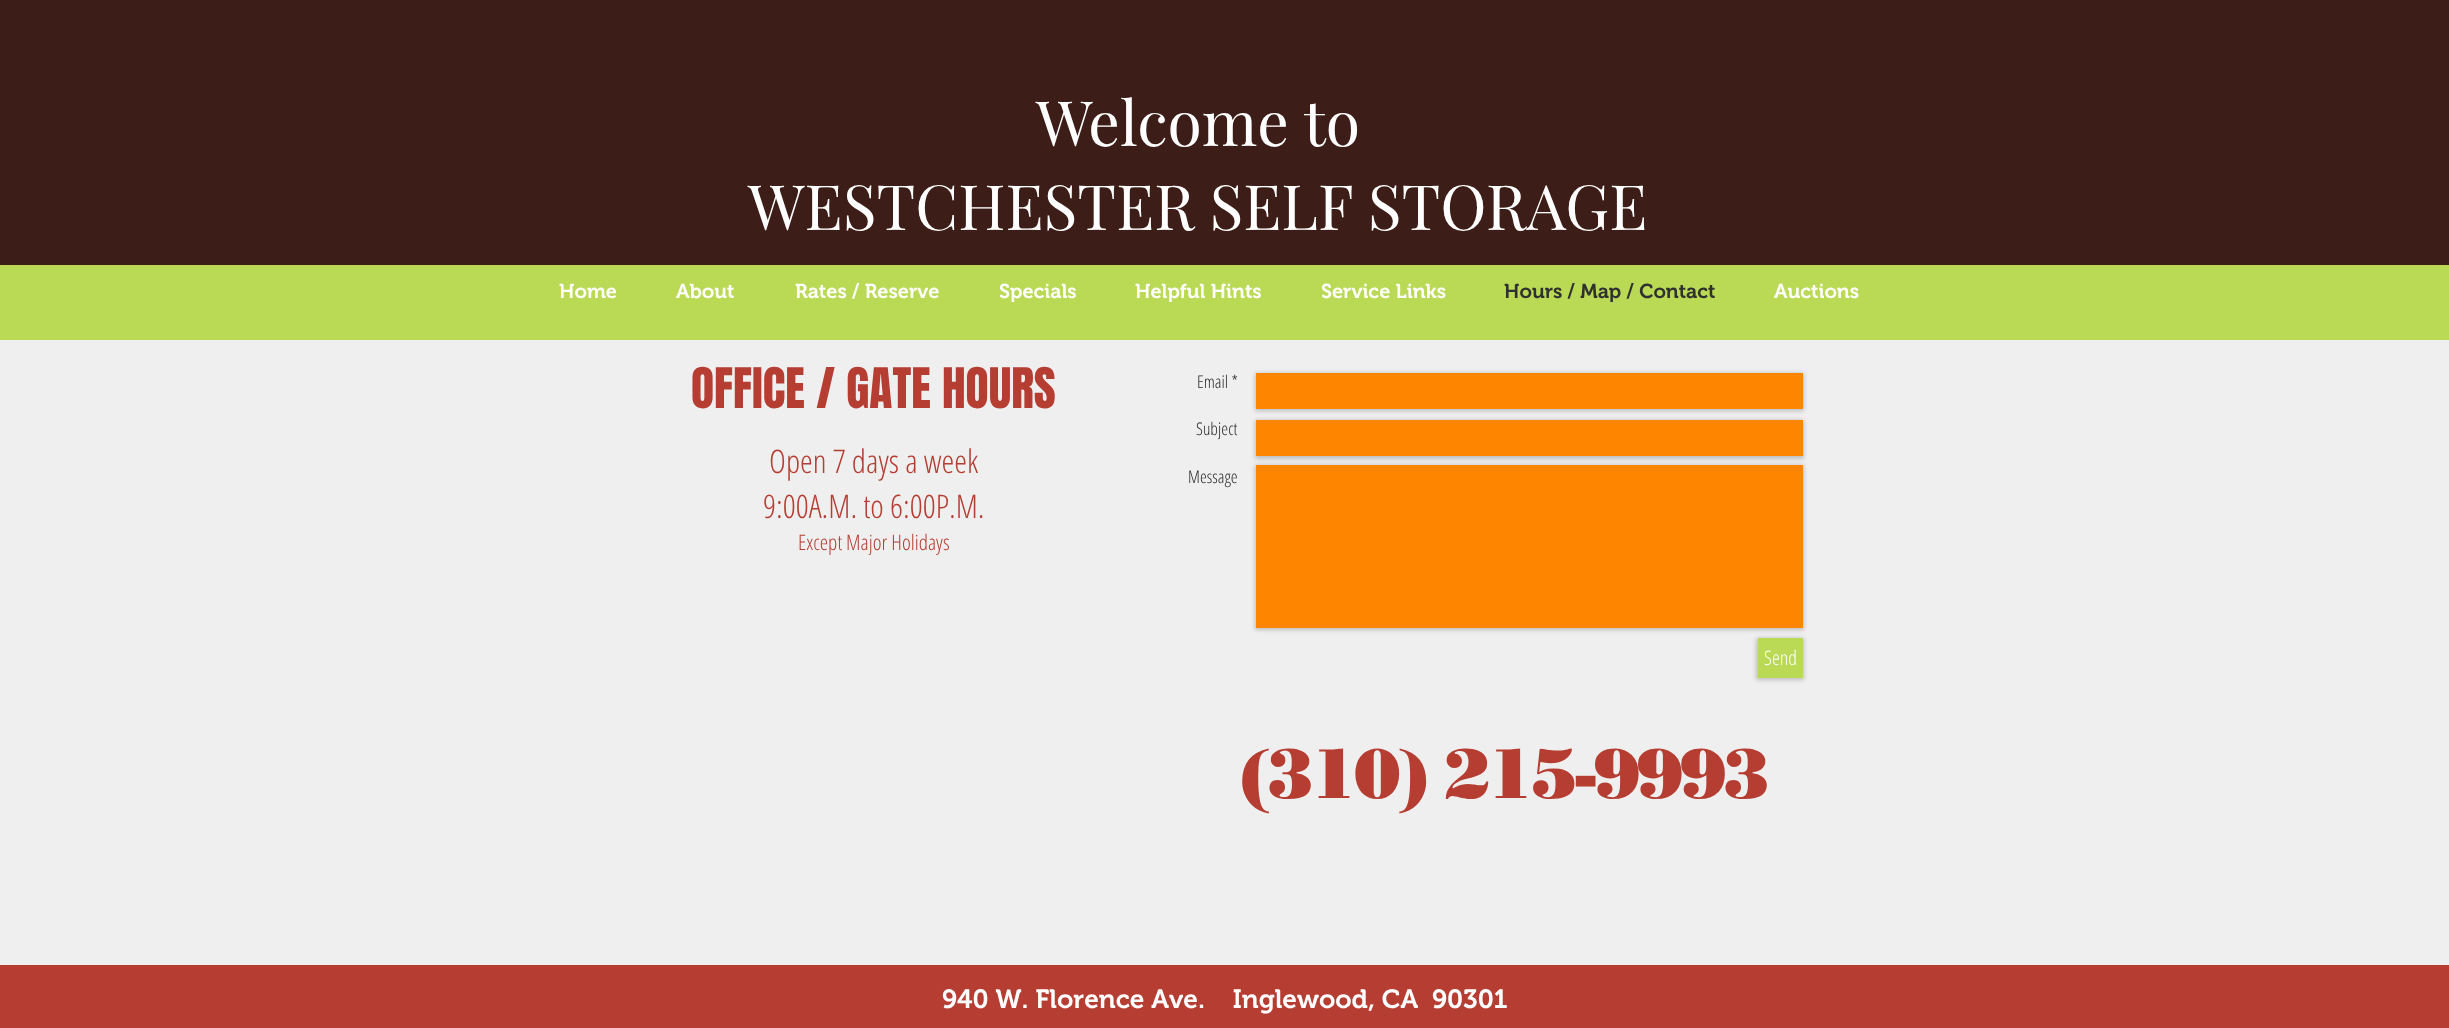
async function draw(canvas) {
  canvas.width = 2449;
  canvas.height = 1028;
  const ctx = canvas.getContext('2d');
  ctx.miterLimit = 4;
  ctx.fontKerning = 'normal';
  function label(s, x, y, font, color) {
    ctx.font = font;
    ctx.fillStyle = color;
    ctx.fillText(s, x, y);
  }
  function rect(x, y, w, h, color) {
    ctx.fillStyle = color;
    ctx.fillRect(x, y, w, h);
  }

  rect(0, 0, 2449, 1028, '#efefef');
  rect(0, 0, 2449, 265, '#3c1d17');
  label('Welcome to', 1036, 146, '62.5px Playfair Display', '#fff');
  label('WESTCHESTER SELF STORAGE', 748, 230, '62.5px Playfair Display', '#fff');
  rect(0, 265, 2449, 75, '#bada55');
  label('Home', 559, 298, '600 20px "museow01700"', '#fff');
  label('About', 676, 298, '600 20px "museow01700"', '#fff');
  label('Rates / Reserve', 795, 298, '600 20px "museow01700"', '#fff');
  label('Specials', 999, 298, '600 20px "museow01700"', '#fff');
  label('Helpful Hints', 1135, 298, '600 20px "museow01700"', '#fff');
  label('Service Links', 1321, 298, '600 20px "museow01700"', '#fff');
  label('Hours / Map / Contact', 1504, 298, '600 20px "museow01700"', '#303030');
  label('Auctions', 1774, 298, '600 20px "museow01700"', '#fff');
  label('OFFICE / GATE HOURS', 691, 408, '47.5px Anton', '#b63d32');
  label('Email *', 1197, 388, '300 17.5px Open Sans Condensed', '#2a2a2a');
  ctx.fillStyle = '#00000033';
  ctx.filter = 'blur(2px)';
  ctx.beginPath();
  ctx.rect(1255, 373, 549, 38);
  ctx.fill();
  ctx.filter = 'none';
  rect(1256, 373, 547, 36, '#fe8500');
  label('Subject', 1196, 435, '300 17.5px Open Sans Condensed', '#2a2a2a');
  ctx.fillStyle = '#00000033';
  ctx.filter = 'blur(2px)';
  ctx.beginPath();
  ctx.rect(1255, 420, 549, 39);
  ctx.fill();
  ctx.filter = 'none';
  rect(1256, 420, 547, 36, '#fe8500');
  label('Message', 1188, 483, '300 17.5px Open Sans Condensed', '#2a2a2a');
  ctx.fillStyle = '#00000033';
  ctx.filter = 'blur(2px)';
  ctx.beginPath();
  ctx.rect(1255, 465, 549, 165);
  ctx.fill();
  ctx.filter = 'none';
  rect(1256, 465, 547, 163, '#fe8500');
  ctx.fillStyle = '#00000033';
  ctx.filter = 'blur(2px)';
  ctx.beginPath();
  ctx.rect(1756, 638, 48, 42);
  ctx.fill();
  ctx.filter = 'none';
  rect(1758, 638, 45, 40, '#bada55');
  label('Send', 1764, 665, '300 20px Open Sans Condensed', '#fff');
  label('Open 7 days a week', 769, 473, '300 32.5px Open Sans Condensed', '#b63d32');
  label('9:00A.M. to 6:00P.M.', 763, 518, '300 32.5px Open Sans Condensed', '#b63d32');
  label('Except Major Holidays', 798, 550, '300 21.25px Open Sans Condensed', '#b63d32');
  ctx.letterSpacing = '-3.5px';
  label('(310) 215-9993', 1240, 798, '900 70px "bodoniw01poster"', '#b63d32');
  rect(0, 965, 2449, 63, '#b63d32');
  ctx.letterSpacing = '0px';
  label('940 W. Florence Ave.    Inglewood, CA  90301', 942, 1008, '600 26.25px "museow01700"', '#fff');
}

draw(document.querySelector('canvas'));
